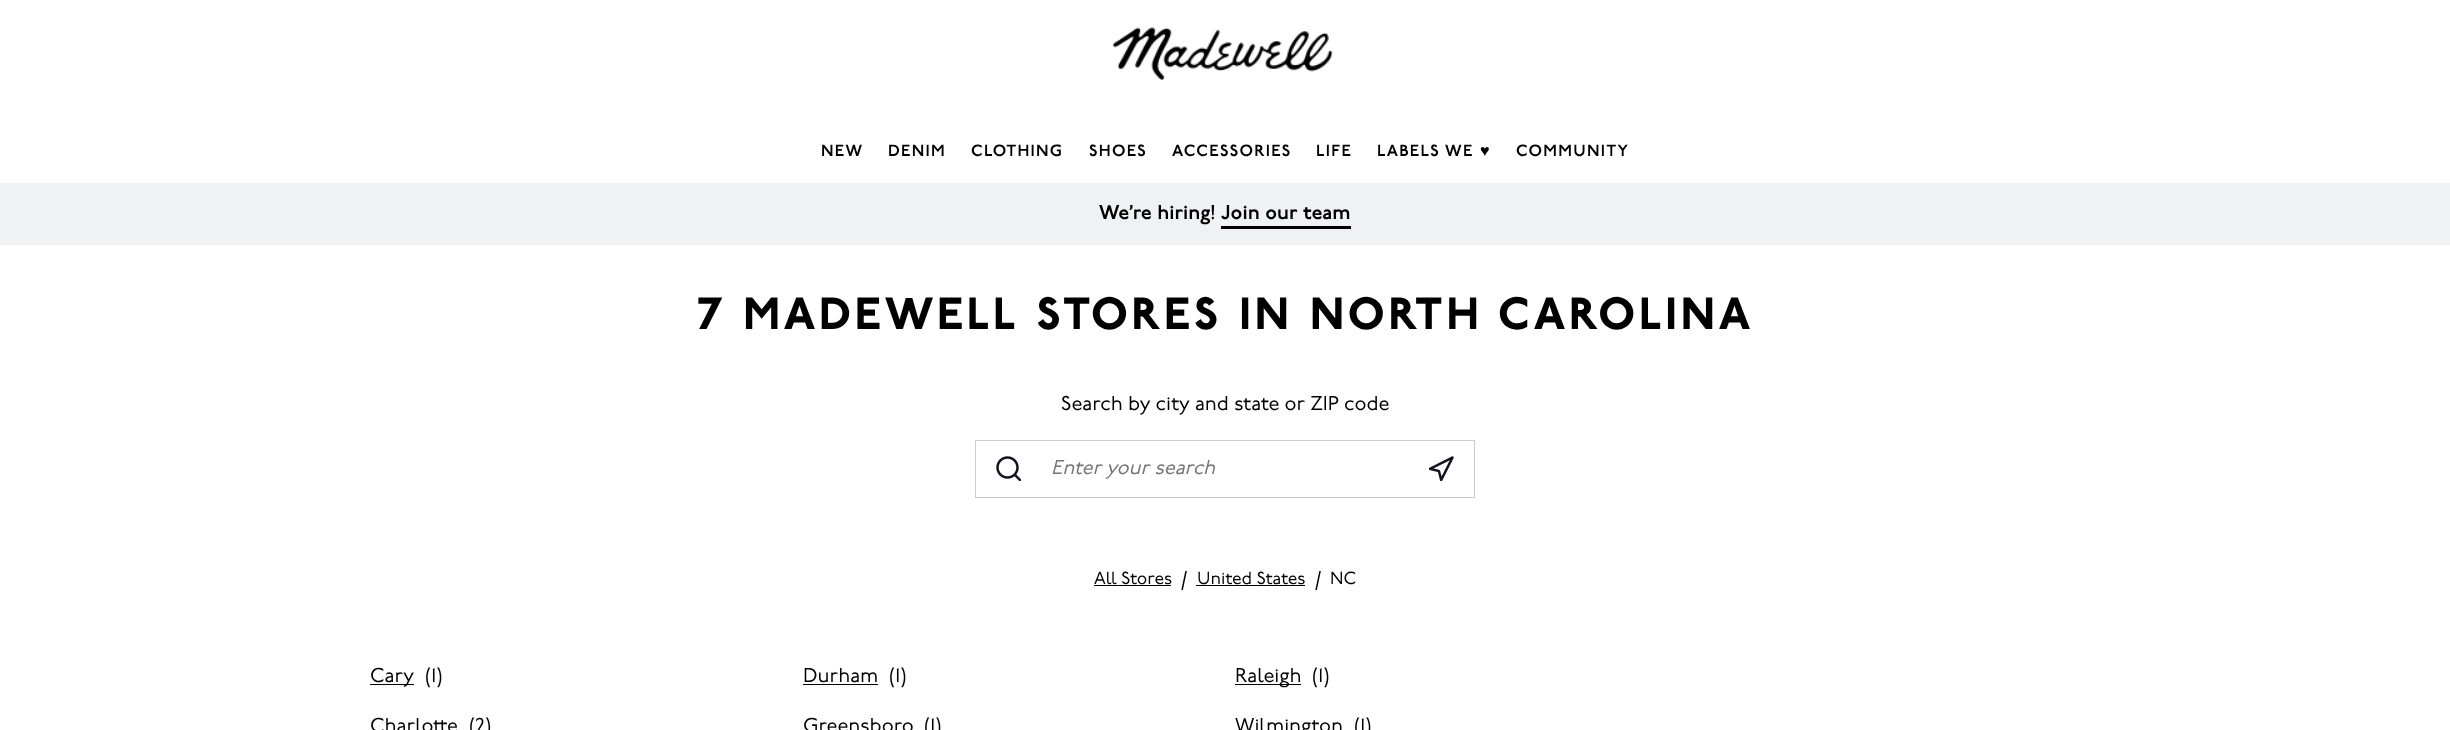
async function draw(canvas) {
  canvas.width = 2450;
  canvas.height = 730;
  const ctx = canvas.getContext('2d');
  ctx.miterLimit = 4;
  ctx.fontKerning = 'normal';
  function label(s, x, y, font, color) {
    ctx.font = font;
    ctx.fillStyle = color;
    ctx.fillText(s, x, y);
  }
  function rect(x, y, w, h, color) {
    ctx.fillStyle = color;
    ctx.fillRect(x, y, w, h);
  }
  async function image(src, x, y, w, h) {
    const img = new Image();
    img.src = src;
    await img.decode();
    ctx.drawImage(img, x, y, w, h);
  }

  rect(0, 0, 2450, 730, '#fff');
  await image('assets/img1.png', 1112, 27, 221, 53);
  ctx.letterSpacing = '1.25px';
  label('NEW', 821, 156, '600 16.25px "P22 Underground"', '#000');
  label('DENIM', 888, 156, '600 16.25px "P22 Underground"', '#000');
  label('CLOTHING', 971, 156, '600 16.25px "P22 Underground"', '#000');
  label('SHOES', 1089, 156, '600 16.25px "P22 Underground"', '#000');
  label('ACCESSORIES', 1172, 156, '600 16.25px "P22 Underground"', '#000');
  label('LIFE', 1316, 156, '600 16.25px "P22 Underground"', '#000');
  label('LABELS WE', 1377, 156, '600 16.25px "P22 Underground"', '#000');
  label('♥', 1480, 156, 'bold 16.25px Liberation Sans', '#000');
  label('COMMUNITY', 1516, 156, '600 16.25px "P22 Underground"', '#000');
  rect(0, 183, 2450, 62, '#f0f1f2');
  ctx.letterSpacing = '0px';
  label('We’re hiring! Join our team', 1099, 219, '600 20px "P22 Underground"', '#000');
  rect(1221, 226, 130, 3, '#000');
  ctx.letterSpacing = '3.75px';
  label('7 MADEWELL STORES IN NORTH CAROLINA', 697, 329, '900 45px "P22 Underground"', '#000');
  ctx.letterSpacing = '0px';
  label('Search by city and state or ZIP code', 1061, 410, '20px "P22 Underground"', '#000');
  ctx.strokeStyle = '#ccc';
  ctx.strokeRect(975.5, 440.5, 499, 57);
  await image('assets/img2.png', 996, 456, 25, 25);
  label('Enter your search', 1051, 474, 'italic 20px "P22 Underground"', '#757575');
  await image('assets/img3.png', 1429, 456, 25, 25);
  label('All Stores', 1094, 584, '17.5px "P22 Underground"', '#000');
  rect(1094, 585, 77, 1, '#000');
  label('/', 1181, 585, '20px "P22 Underground"', '#000');
  label('United States', 1197, 584, '17.5px "P22 Underground"', '#000');
  rect(1196, 585, 109, 1, '#000');
  label('/', 1315, 585, '20px "P22 Underground"', '#000');
  label('NC', 1330, 584, '17.5px "P22 Underground"', '#000');
  rect(370, 684, 44, 1, '#000');
  label('Cary', 370, 682, '20px "P22 Underground"', '#000');
  label('(1)', 425, 682, '20px "P22 Underground"', '#000');
  label('Durham', 803, 682, '20px "P22 Underground"', '#000');
  rect(803, 684, 75, 1, '#000');
  label('(1)', 889, 682, '20px "P22 Underground"', '#000');
  rect(1235, 684, 66, 1, '#000');
  label('Raleigh', 1235, 682, '20px "P22 Underground"', '#000');
  label('(1)', 1312, 682, '20px "P22 Underground"', '#000');
  label('Charlotte', 370, 732, '20px "P22 Underground"', '#000');
  label('(2)', 469, 732, '20px "P22 Underground"', '#000');
  label('Greensboro', 803, 732, '20px "P22 Underground"', '#000');
  label('(1)', 924, 732, '20px "P22 Underground"', '#000');
  label('Wilmington', 1235, 732, '20px "P22 Underground"', '#000');
  label('(1)', 1354, 732, '20px "P22 Underground"', '#000');
}

draw(document.querySelector('canvas'));
